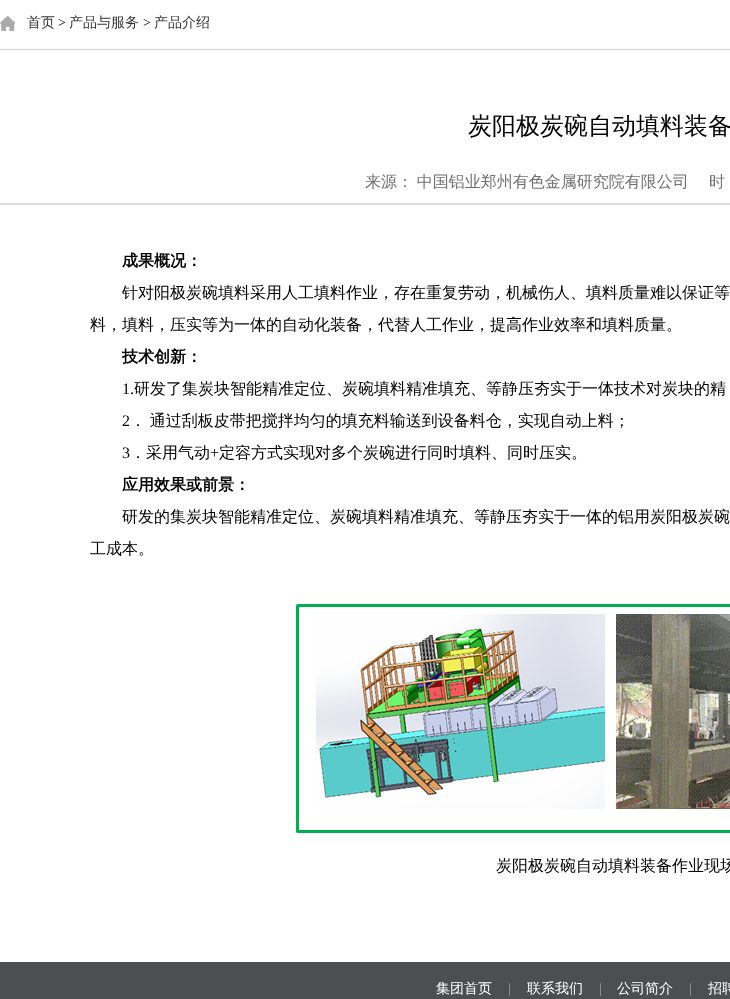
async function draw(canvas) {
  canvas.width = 730;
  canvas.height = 999;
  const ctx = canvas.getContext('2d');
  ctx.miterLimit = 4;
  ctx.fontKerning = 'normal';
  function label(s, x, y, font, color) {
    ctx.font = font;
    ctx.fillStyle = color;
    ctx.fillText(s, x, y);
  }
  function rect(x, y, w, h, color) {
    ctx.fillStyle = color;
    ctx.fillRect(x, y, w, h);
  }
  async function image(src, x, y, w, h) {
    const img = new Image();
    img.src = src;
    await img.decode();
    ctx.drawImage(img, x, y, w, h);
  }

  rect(0, 0, 730, 999, '#fff');
  rect(0, 49, 730, 1, '#d3d3d3');
  await image('assets/img1.png', 0, 16, 15, 15);
  label('首页', 27, 27, '500 14px WenQuanYi Zen Hei', '#333');
  label('>', 58, 27, '14px Liberation Serif', '#000');
  label('产品与服务', 69, 27, '500 14px WenQuanYi Zen Hei', '#333');
  label('>', 143, 27, '14px Liberation Serif', '#000');
  label('产品介绍', 154, 27, '500 14px WenQuanYi Zen Hei', '#333');
  rect(0, 203, 730, 2, '#dcdcdc');
  label('炭阳极炭碗自动填料装备', 468, 134, '500 24px WenQuanYi Zen Hei', '#000');
  ctx.wordSpacing = '-1px';
  label('来源： 中国铝业郑州有色金属研究院有限公司', 365, 187, '500 16px WenQuanYi Zen Hei', '#707070');
  ctx.wordSpacing = '0px';
  label('时', 709, 187, '500 16px WenQuanYi Zen Hei', '#707070');
  label('成果概况：', 122, 266, 'bold 16px WenQuanYi Zen Hei', '#000');
  label('针对阳极炭碗填料采用人工填料作业，存在重复劳动，机械伤人、填料质量难以保证等', 122, 298, '500 16px WenQuanYi Zen Hei', '#000');
  label('料，填料，压实等为一体的自动化装备，代替人工作业，提高作业效率和填料质量。', 90, 330, '500 16px WenQuanYi Zen Hei', '#000');
  label('技术创新：', 122, 362, 'bold 16px WenQuanYi Zen Hei', '#000');
  label('1.', 122, 394, '16px Liberation Serif', '#000');
  label('研发了集炭块智能精准定位、炭碗填料精准填充、等静压夯实于一体技术对炭块的精', 134, 394, '500 16px WenQuanYi Zen Hei', '#000');
  label('2', 122, 426, '16px Liberation Serif', '#000');
  ctx.wordSpacing = '-1px';
  label('． 通过刮板皮带把搅拌均匀的填充料输送到设备料仓，实现自动上料；', 130, 426, '500 16px WenQuanYi Zen Hei', '#000');
  ctx.wordSpacing = '0px';
  label('3', 122, 458, '16px Liberation Serif', '#000');
  label('．采用气动', 130, 458, '500 16px WenQuanYi Zen Hei', '#000');
  label('+', 210, 458, '16px Liberation Serif', '#000');
  label('定容方式实现对多个炭碗进行同时填料、同时压实。', 219, 458, '500 16px WenQuanYi Zen Hei', '#000');
  label('应用效果或前景：', 122, 490, 'bold 16px WenQuanYi Zen Hei', '#000');
  label('研发的集炭块智能精准定位、炭碗填料精准填充、等静压夯实于一体的铝用炭阳极炭碗', 122, 522, '500 16px WenQuanYi Zen Hei', '#000');
  label('工成本。', 90, 554, '500 16px WenQuanYi Zen Hei', '#000');
  await image('assets/img2.png', 296, 604, 434, 229);
  label('炭阳极炭碗自动填料装备作业现场', 496, 871, '500 16px WenQuanYi Zen Hei', '#000');
  rect(0, 962, 730, 37, '#4c4e51');
  label('集团首页', 436, 993, '500 14px WenQuanYi Zen Hei', '#fff');
  label('|', 508, 993, '14px Liberation Serif', '#a2a2a2');
  label('联系我们', 527, 993, '500 14px WenQuanYi Zen Hei', '#fff');
  label('|', 599, 993, '14px Liberation Serif', '#a2a2a2');
  label('公司简介', 617, 993, '500 14px WenQuanYi Zen Hei', '#fff');
  label('|', 689, 993, '14px Liberation Serif', '#a2a2a2');
  label('招聘', 708, 993, '500 14px WenQuanYi Zen Hei', '#fff');
}

draw(document.querySelector('canvas'));
